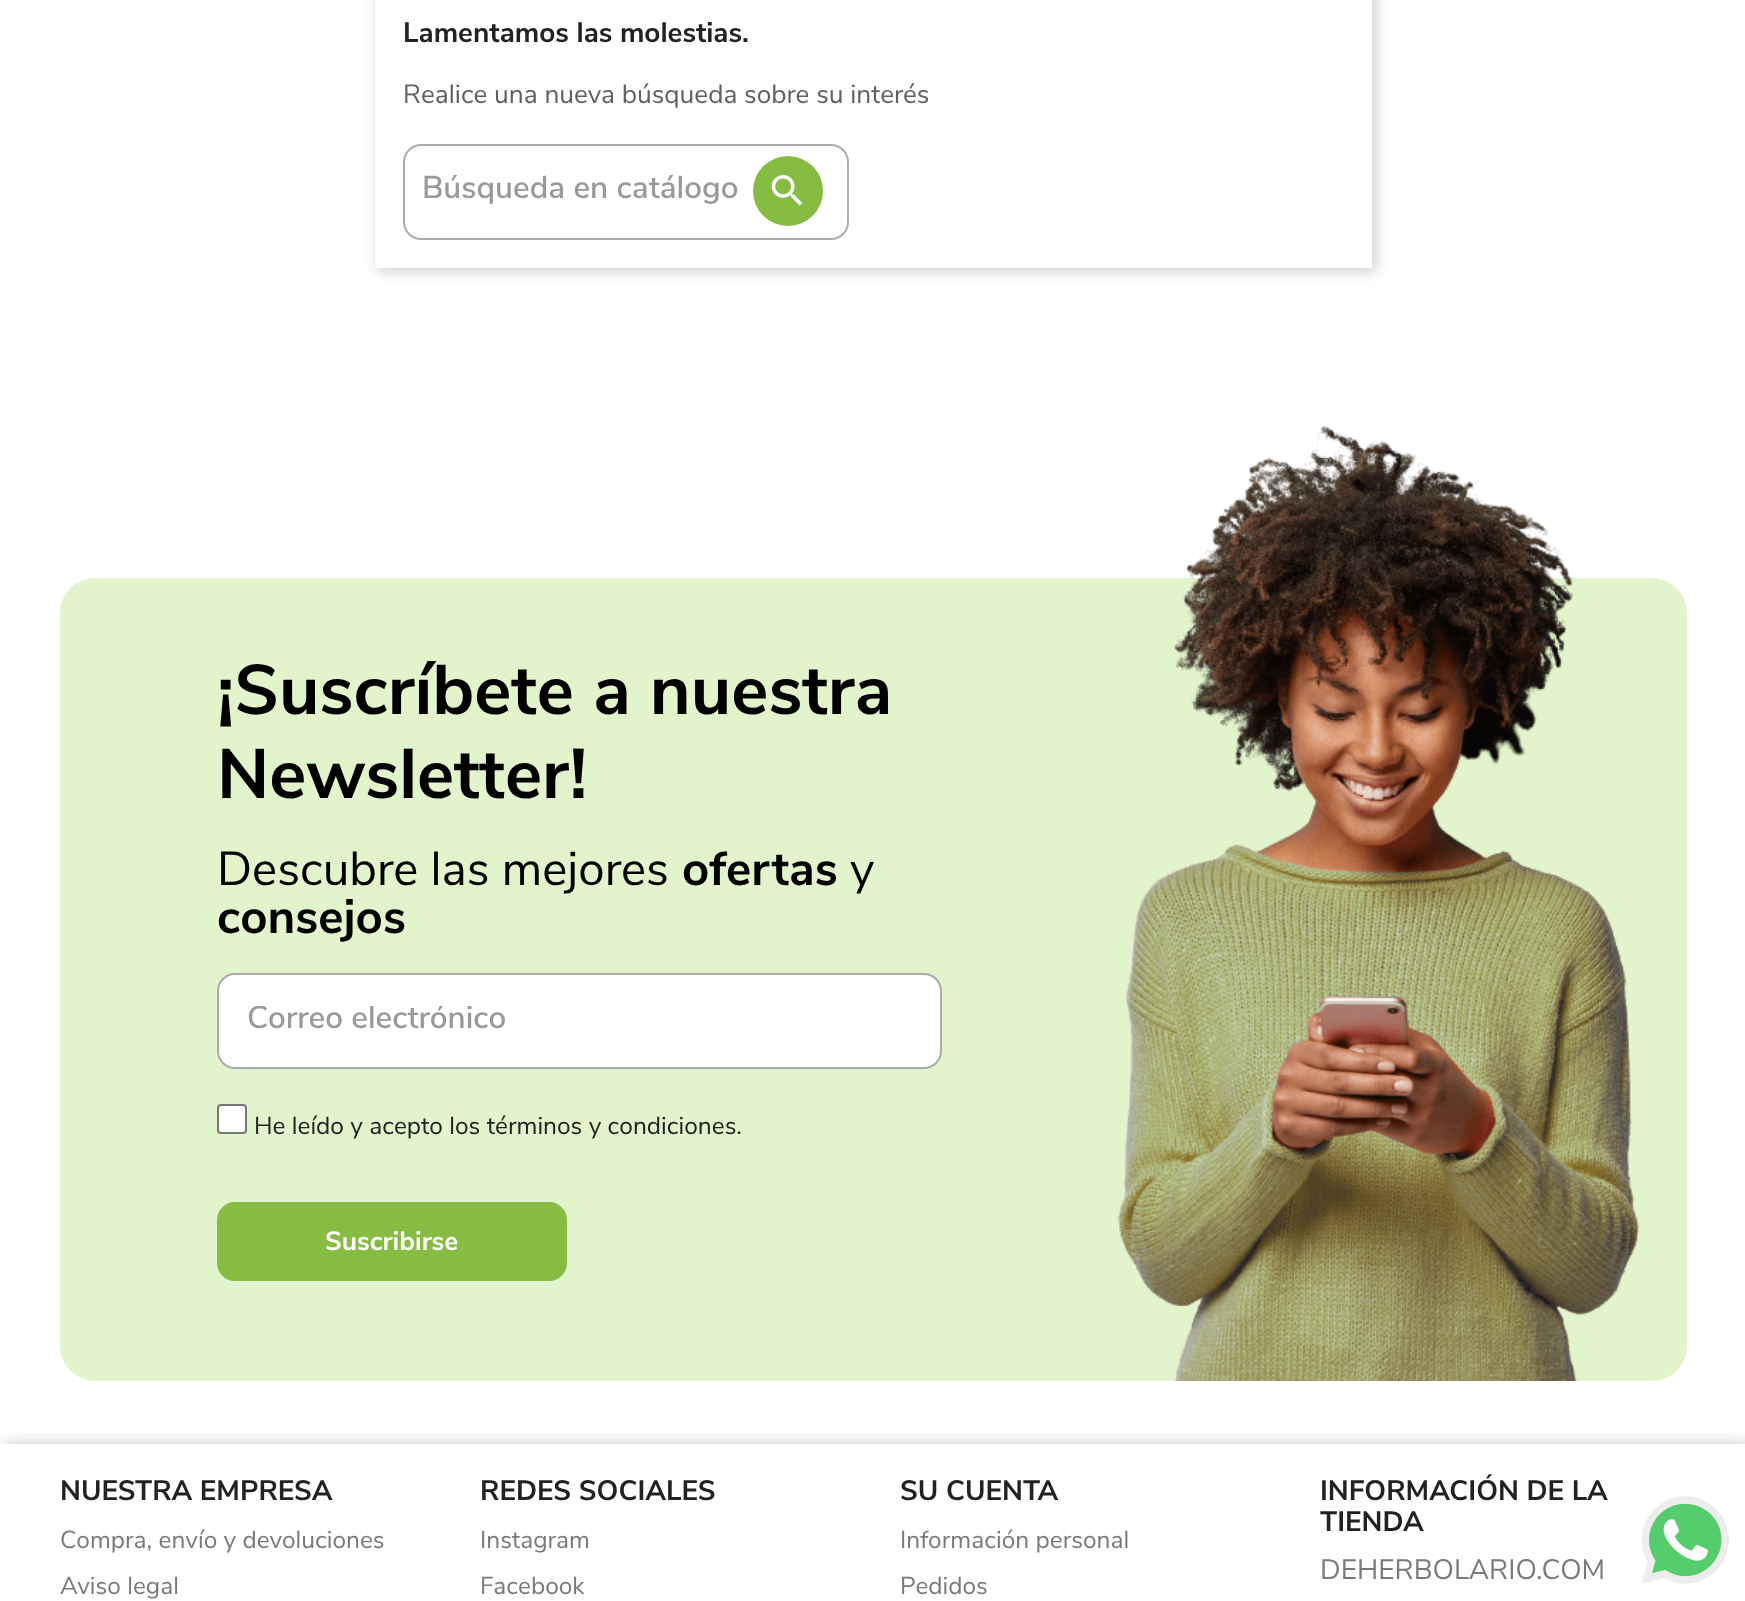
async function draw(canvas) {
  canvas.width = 1745;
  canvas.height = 1601;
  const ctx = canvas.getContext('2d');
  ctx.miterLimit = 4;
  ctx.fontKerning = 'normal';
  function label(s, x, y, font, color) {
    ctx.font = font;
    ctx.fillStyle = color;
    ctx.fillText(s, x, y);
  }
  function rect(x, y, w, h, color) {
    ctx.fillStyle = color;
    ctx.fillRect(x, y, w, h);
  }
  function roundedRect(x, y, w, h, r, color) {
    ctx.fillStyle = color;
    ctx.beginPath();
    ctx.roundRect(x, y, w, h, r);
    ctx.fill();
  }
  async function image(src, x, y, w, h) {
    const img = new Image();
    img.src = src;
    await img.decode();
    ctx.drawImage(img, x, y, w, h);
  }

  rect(0, 0, 1745, 1601, '#fff');
  ctx.fillStyle = '#00000033';
  ctx.filter = 'blur(7px)';
  ctx.beginPath();
  ctx.rect(378, -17, 998, 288);
  ctx.fill();
  ctx.filter = 'none';
  rect(375, 0, 997, 268, '#fff');
  label('Lamentamos las molestias.', 403, 42, 'bold 28px Nunito Sans', '#222');
  label('Realice una nueva búsqueda sobre su interés', 403, 103, '26.25px Nunito Sans', '#606060');
  ctx.beginPath();
  ctx.roundRect(404, 145, 444, 94, 17);
  ctx.strokeStyle = '#ababab';
  ctx.lineWidth = 2;
  ctx.stroke();
  ctx.save();
  ctx.beginPath();
  ctx.rect(422, 175, 408, 32);
  ctx.clip();
  label('Búsqueda en catálogo', 422, 198, '600 31.5px Nunito Sans', '#999');
  ctx.restore();
  ctx.fillStyle = '#86bc42';
  ctx.beginPath();
  ctx.arc(788, 191, 35, 0, 2 * Math.PI);
  ctx.fill();
  await image('assets/img1.png', 771, 175, 32, 31);
  roundedRect(60, 578, 1627, 803, 35, '#e2f4cb');
  label('¡Suscríbete a nuestra', 217, 714, 'bold 70px Nunito Sans', '#000');
  label('Newsletter!', 217, 798, 'bold 70px Nunito Sans', '#000');
  label('Descubre las mejores', 217, 885, '47.5px Nunito Sans', '#000');
  label('ofertas', 682, 885, 'bold 47.5px Nunito Sans', '#000');
  label('y', 850, 885, '47.5px Nunito Sans', '#000');
  label('consejos', 217, 933, 'bold 47.5px Nunito Sans', '#000');
  ctx.fillStyle = '#fff';
  ctx.beginPath();
  ctx.roundRect(218, 974, 723, 94, 17);
  ctx.fill();
  ctx.stroke();
  ctx.save();
  ctx.beginPath();
  ctx.rect(247, 1006, 665, 32);
  ctx.clip();
  label('Correo electrónico', 247, 1028, '600 31.5px Nunito Sans', '#999');
  ctx.restore();
  ctx.beginPath();
  ctx.roundRect(218, 1105, 28, 28, 3);
  ctx.fill();
  ctx.strokeStyle = '#767676';
  ctx.stroke();
  label('He leído y acepto los términos y condiciones.', 254, 1134, '24.5px Nunito Sans', '#222');
  ctx.fillStyle = '#86bc42';
  ctx.beginPath();
  ctx.roundRect(218, 1203, 348, 77, 17);
  ctx.fill();
  ctx.strokeStyle = '#86bc42';
  ctx.stroke();
  label('Suscribirse', 325, 1250, 'bold 26.25px Nunito Sans', '#fff');
  await image('assets/img2.png', 1117, 425, 522, 956);
  ctx.save();
  ctx.beginPath();
  ctx.rect(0, 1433, 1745, 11);
  ctx.clip();
  ctx.fillStyle = '#0000004d';
  ctx.filter = 'blur(9.5px)';
  ctx.beginPath();
  ctx.rect(4, 1447, 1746, 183);
  ctx.fill();
  ctx.filter = 'none';
  ctx.restore();
  label('NUESTRA EMPRESA', 60, 1500, 'bold 28px Nunito Sans', '#222');
  label('Compra, envío y devoluciones', 60, 1548, '24.5px Nunito Sans', '#7a7a7a');
  label('Aviso legal', 60, 1594, '24.5px Nunito Sans', '#7a7a7a');
  label('REDES SOCIALES', 480, 1500, 'bold 28px Nunito Sans', '#222');
  label('Instagram', 480, 1548, '24.5px Nunito Sans', '#7a7a7a');
  label('Facebook', 480, 1594, '24.5px Nunito Sans', '#7a7a7a');
  label('SU CUENTA', 900, 1500, 'bold 28px Nunito Sans', '#222');
  label('Información personal', 900, 1548, '24.5px Nunito Sans', '#7a7a7a');
  label('Pedidos', 900, 1594, '24.5px Nunito Sans', '#7a7a7a');
  label('INFORMACIÓN DE LA', 1320, 1500, 'bold 28px Nunito Sans', '#222');
  label('TIENDA', 1320, 1531, 'bold 28px Nunito Sans', '#222');
  label('DEHERBOLARIO.COM', 1320, 1579, '28px Nunito Sans', '#7a7a7a');
  await image('assets/img3.png', 1642, 1496, 87, 88);
}

draw(document.querySelector('canvas'));
